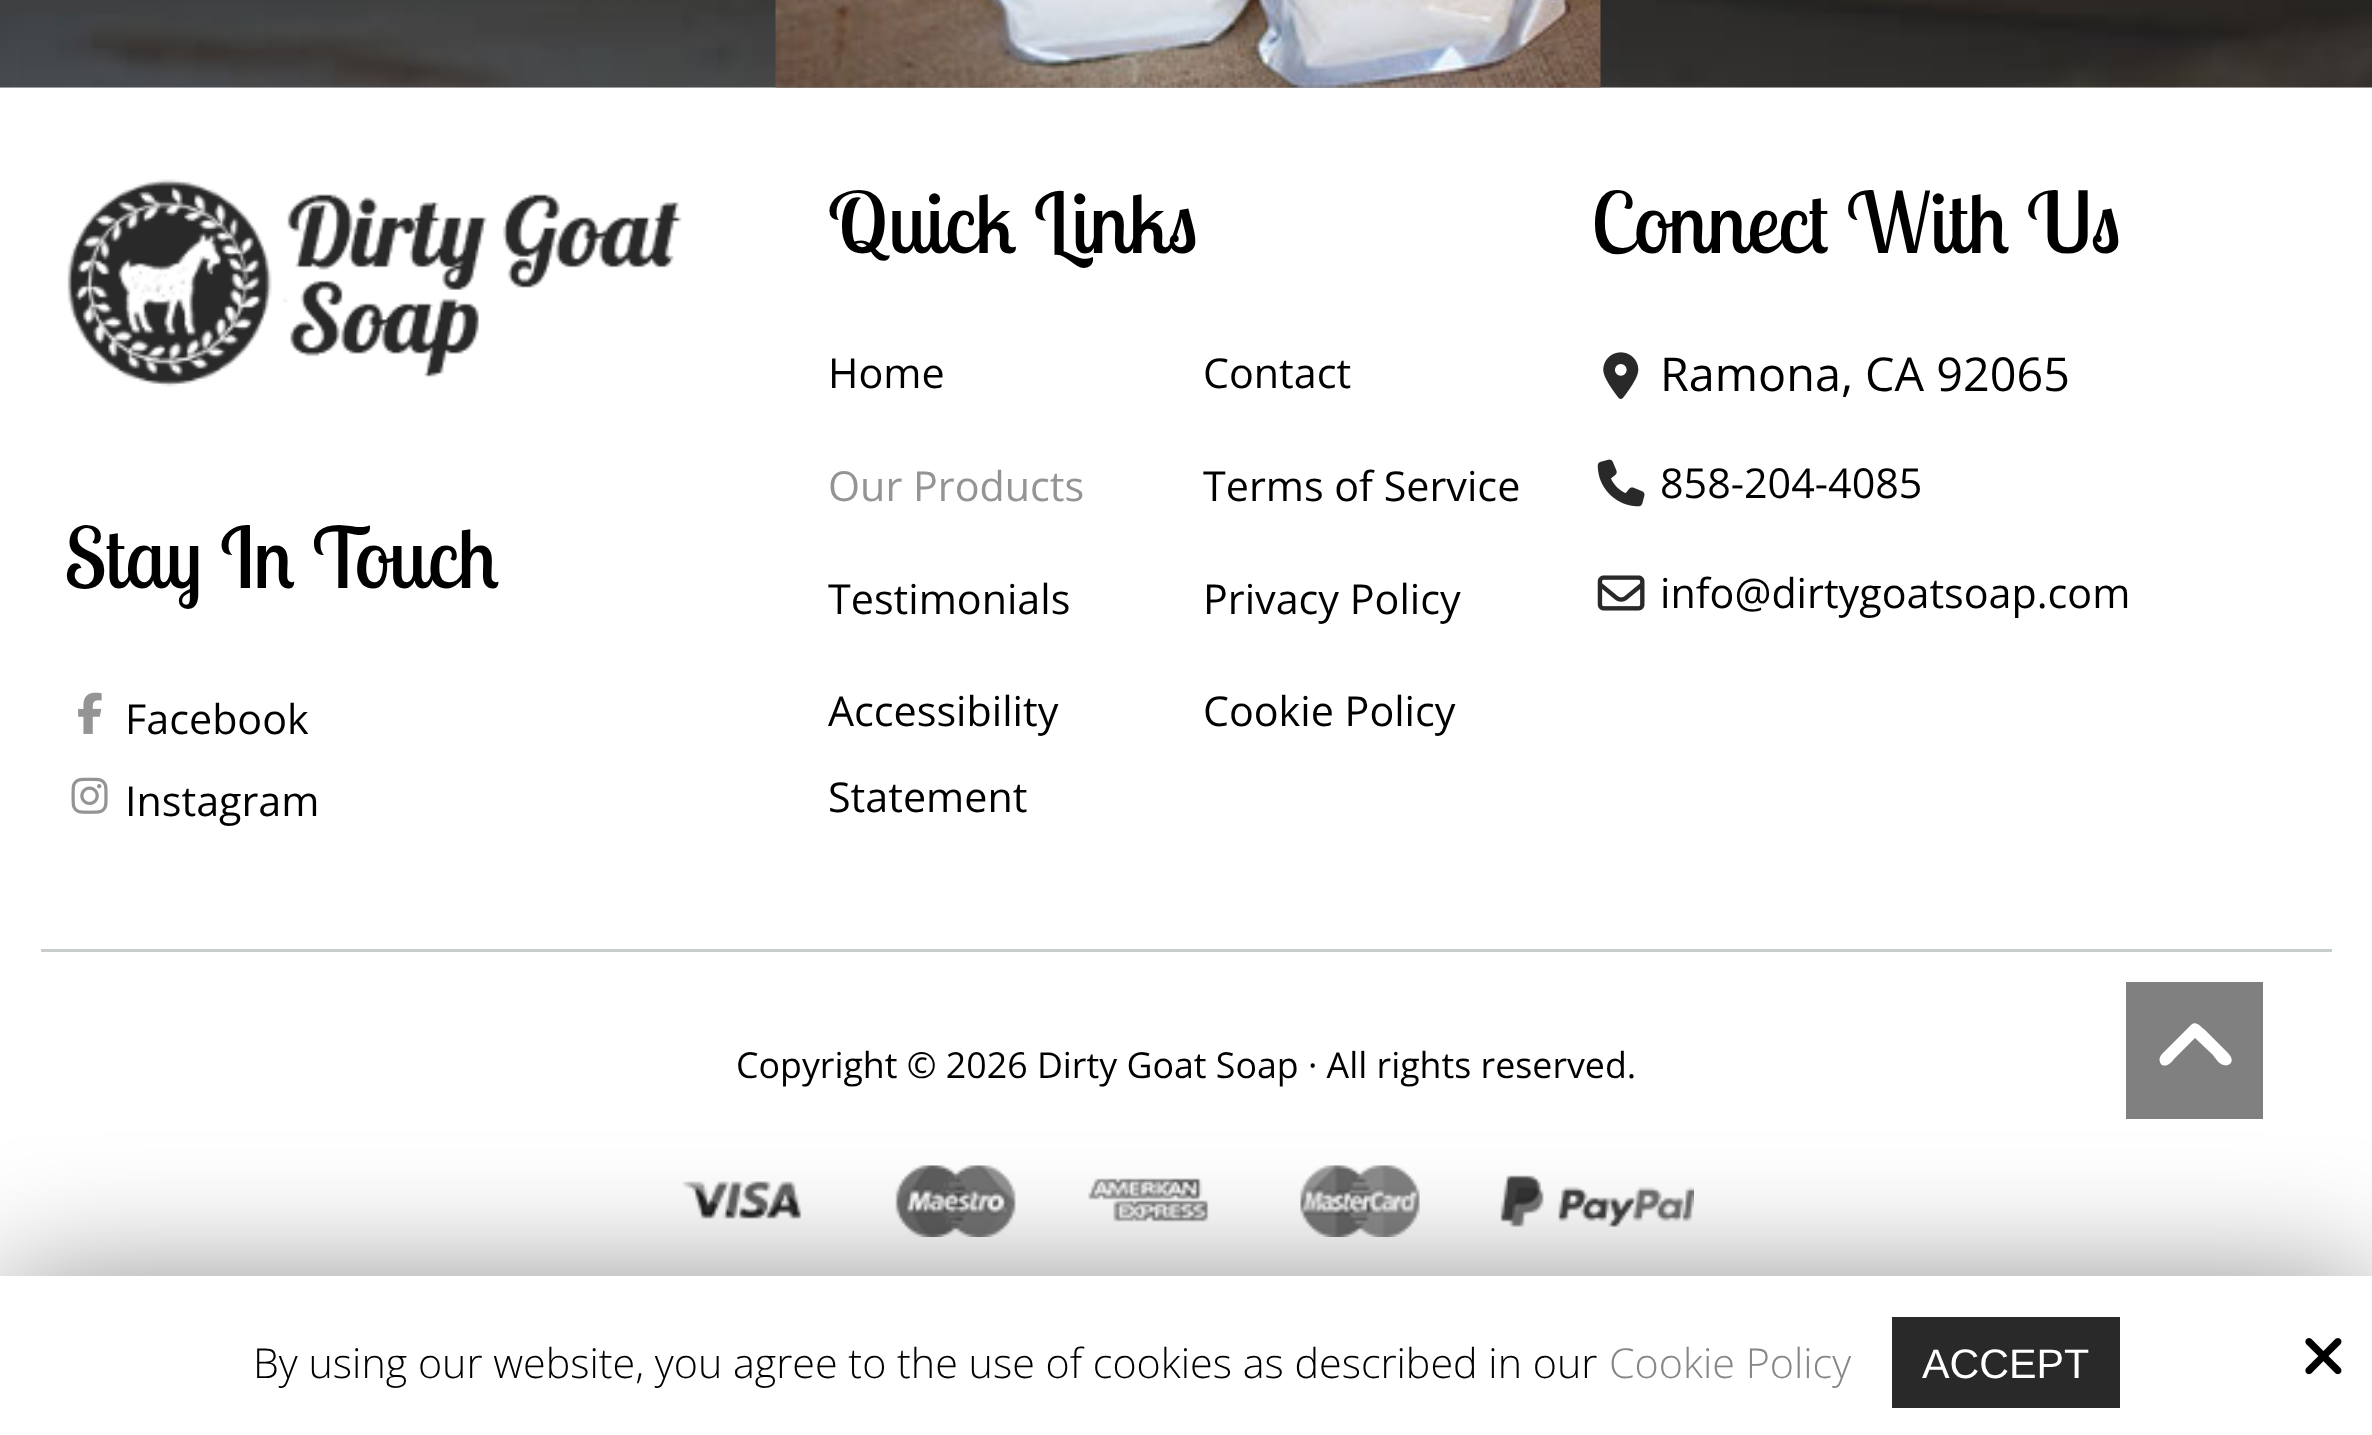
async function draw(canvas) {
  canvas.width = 2372;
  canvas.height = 1435;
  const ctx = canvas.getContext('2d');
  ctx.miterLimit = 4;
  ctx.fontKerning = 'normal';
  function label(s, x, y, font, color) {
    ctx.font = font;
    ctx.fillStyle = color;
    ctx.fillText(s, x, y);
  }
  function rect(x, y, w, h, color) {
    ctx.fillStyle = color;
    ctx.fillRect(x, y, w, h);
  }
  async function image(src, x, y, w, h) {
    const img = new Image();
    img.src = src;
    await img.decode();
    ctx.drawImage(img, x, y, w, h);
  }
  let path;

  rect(0, 0, 2372, 1435, '#fff');
  rect(0, 87, 2372, 1, '#f2f2f2');
  await image('assets/img1.png', 0, 0, 2372, 88);
  await image('assets/img2.png', 775, 0, 826, 88);
  label('Quick Links', 828, 253, '84px Lobster Two', '#000');
  label('Home', 828, 388, '41.25px Open Sans', '#000');
  label('Our Products', 828, 501, '41.25px Open Sans', '#949494');
  label('Testimonials', 828, 614, '41.25px Open Sans', '#000');
  label('Accessibility', 828, 726, '41.25px Open Sans', '#000');
  label('Statement', 828, 812, '41.25px Open Sans', '#000');
  label('Contact', 1203, 388, '41.25px Open Sans', '#000');
  label('Terms of Service', 1203, 501, '41.25px Open Sans', '#000');
  label('Privacy Policy', 1203, 614, '41.25px Open Sans', '#000');
  label('Cookie Policy', 1203, 726, '41.25px Open Sans', '#000');
  label('Connect With Us', 1591, 253, '84px Lobster Two', '#000');
  await image('assets/img3.png', 1603, 352, 36, 47);
  label('Ramona, CA 92065', 1660, 391, '46.75px Open Sans', '#000');
  await image('assets/img4.png', 1597, 459, 48, 48);
  label('858-204-4085', 1660, 498, '41.25px Open Sans', '#000');
  await image('assets/img5.png', 1597, 575, 48, 36);
  label('info@dirtygoatsoap.com', 1660, 608, '41.25px Open Sans', '#000');
  await image('assets/img6.png', 67, 179, 615, 208);
  label('Stay In Touch', 64, 588, '84px Lobster Two', '#000');
  await image('assets/img7.png', 78, 692, 24, 42);
  label('Facebook', 125, 734, '41.25px Open Sans', '#000');
  await image('assets/img8.png', 71, 777, 37, 37);
  label('Instagram', 125, 816, '41.25px Open Sans', '#000');
  rect(41, 949, 2291, 3, '#c7cccc');
  label('Copyright © 2026 Dirty Goat Soap · All rights reserved.', 736, 1078, '35.75px Open Sans', '#000');
  await image('assets/img9.png', 682, 1165, 1012, 72);
  rect(2126, 982, 137, 137, '#808080');
  ctx.fillStyle = '#fff';
  path = new Path2D('M2191 1025C2196 1020 2201 1027 2205 1030L2225 1050C2228 1053 2235 1059 2230 1064C2228 1065 2226 1066 2224 1065C2220 1065 2215 1058 2213 1055L2195 1038L2174 1059C2171 1063 2167 1067 2162 1065C2161 1064 2160 1063 2160 1062C2158 1057 2163 1053 2166 1050Z');
  ctx.fill(path);
  ctx.fillStyle = '#00000080';
  ctx.filter = 'blur(69px)';
  ctx.beginPath();
  ctx.rect(0, 1290, 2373, 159);
  ctx.fill();
  ctx.filter = 'none';
  rect(0, 1276, 2372, 159, '#fff');
  label('By using our website, you agree to the use of cookies as described in our', 253, 1378, '300 41.25px Open Sans', '#000');
  label('Cookie Policy', 1609, 1378, '300 41.25px Open Sans', '#888686');
  rect(1892, 1317, 228, 91, '#292929');
  label('ACCEPT', 1922, 1378, '41.25px Liberation Sans', '#fff');
  await image('assets/img10.png', 2305, 1338, 37, 37);
}

draw(document.querySelector('canvas'));
